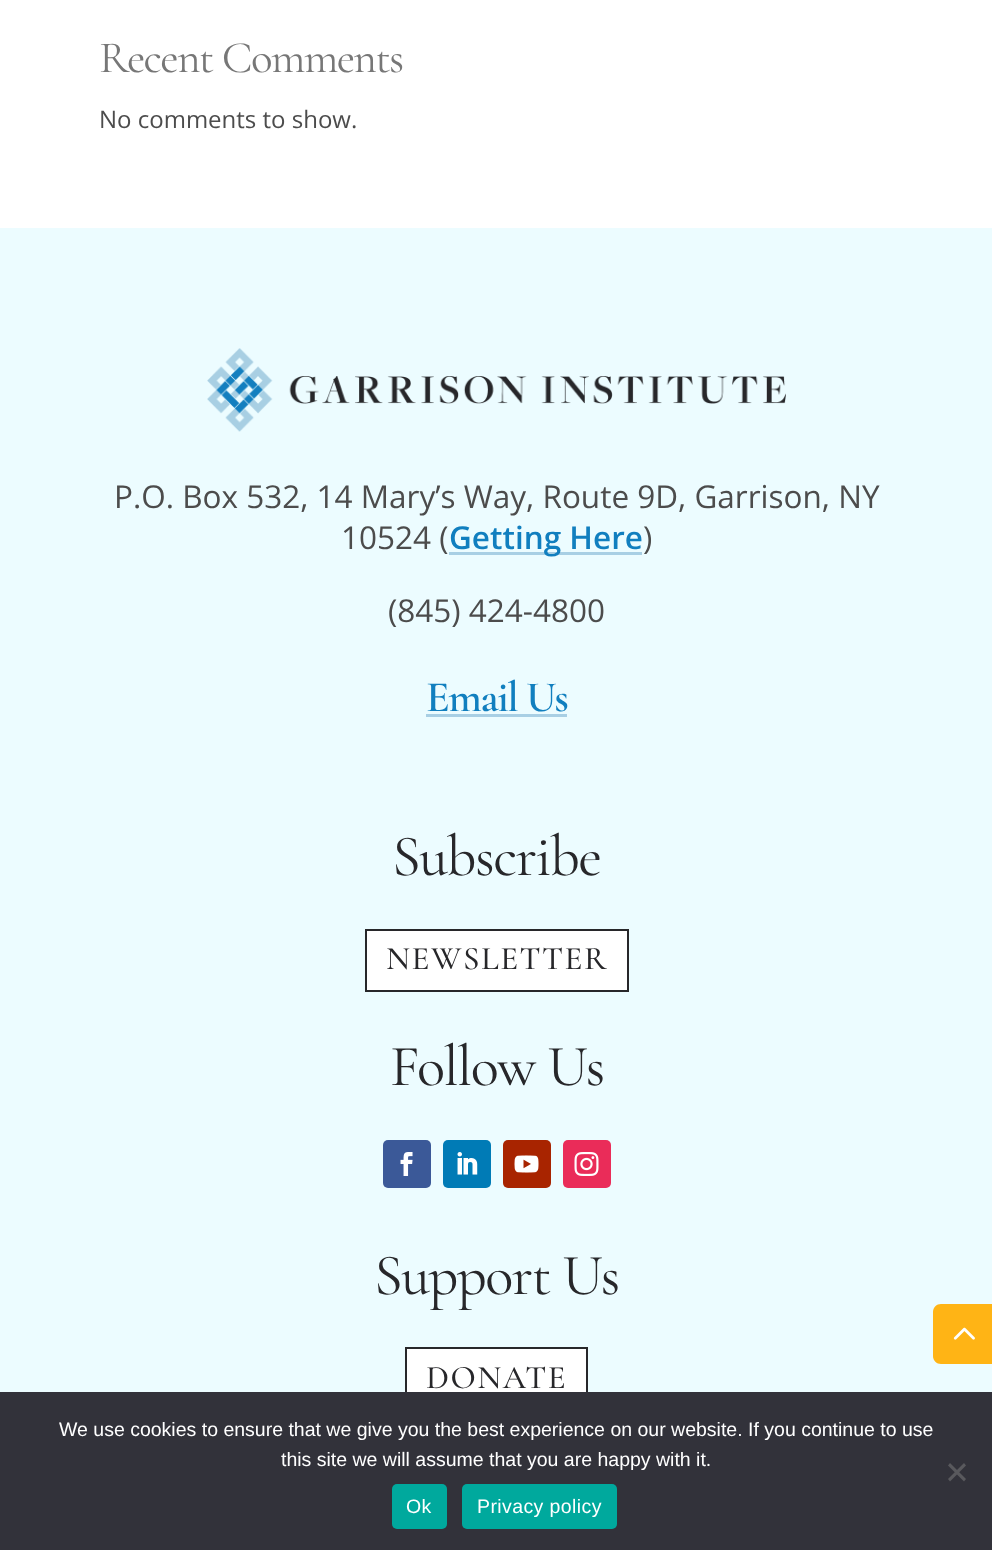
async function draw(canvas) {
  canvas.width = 992;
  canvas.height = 1550;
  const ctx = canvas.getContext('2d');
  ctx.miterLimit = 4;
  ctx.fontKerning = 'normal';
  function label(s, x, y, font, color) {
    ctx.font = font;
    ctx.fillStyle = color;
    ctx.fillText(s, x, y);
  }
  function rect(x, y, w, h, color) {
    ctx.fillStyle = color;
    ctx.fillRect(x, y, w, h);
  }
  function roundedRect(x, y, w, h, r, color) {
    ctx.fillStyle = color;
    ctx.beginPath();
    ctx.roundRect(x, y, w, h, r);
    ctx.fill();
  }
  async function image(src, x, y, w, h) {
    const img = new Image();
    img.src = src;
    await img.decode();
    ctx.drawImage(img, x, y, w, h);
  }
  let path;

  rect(0, 0, 992, 1550, '#fff');
  ctx.letterSpacing = '-1.5px';
  label('Recent Comments', 99, 72, '45px Cormorant Garamond', '#777');
  ctx.letterSpacing = '0px';
  label('No comments to show.', 99, 128, '24px Open Sans', '#4c4c4c');
  rect(0, 228, 992, 1164, '#ecfcff');
  await image('assets/img1.png', 207, 348, 579, 84);
  label('P.O. Box 532, 14 Mary’s Way, Route 9D, Garrison, NY', 114, 508, '31.5px Open Sans', '#4c4c4c');
  label('10524 (', 341, 549, '31.5px Open Sans', '#4c4c4c');
  rect(449, 552, 193, 3, '#a8cfe4');
  label('Getting Here', 449, 549, '600 31.5px Open Sans', '#117fbf');
  label(')', 643, 549, '31.5px Open Sans', '#4c4c4c');
  label('(845) 424-4800', 388, 622, '31.5px Open Sans', '#4c4c4c');
  ctx.letterSpacing = '-1.5px';
  label('Email Us', 426, 711, '600 43.5px Cormorant Garamond', '#117fbf');
  rect(426, 714, 141, 3, '#a8cfe4');
  label('Subscribe', 392, 875, '58.5px Cormorant Garamond', '#27272a');
  ctx.fillStyle = '#fff';
  ctx.beginPath();
  ctx.rect(366, 930, 262, 61);
  ctx.fill();
  ctx.strokeStyle = '#27272a';
  ctx.lineWidth = 2;
  ctx.stroke();
  ctx.letterSpacing = '1.5px';
  label('NEWSLETTER', 386, 969, '500 33px Cormorant Garamond', '#27272a');
  ctx.letterSpacing = '-1.5px';
  label('Follow Us', 390, 1085, '58.5px Cormorant Garamond', '#27272a');
  roundedRect(383, 1140, 48, 48, 5, '#3b5998');
  await image('assets/img2.png', 400, 1152, 13, 24);
  roundedRect(443, 1140, 48, 48, 5, '#007bb6');
  await image('assets/img3.png', 457, 1152, 21, 23);
  roundedRect(503, 1140, 48, 48, 5, '#a82400');
  await image('assets/img4.png', 514, 1155, 25, 18);
  roundedRect(563, 1140, 48, 48, 5, '#ea2c59');
  await image('assets/img5.png', 574, 1152, 25, 24);
  label('Support Us', 374, 1294, '58.5px Cormorant Garamond', '#27272a');
  rect(407, 1349, 179, 43, '#fff');
  ctx.strokeRect(406, 1348, 181, 61);
  ctx.letterSpacing = '1.5px';
  label('DONATE', 426, 1388, '500 33px Cormorant Garamond', '#27272a');
  ctx.fillStyle = '#ffb415';
  path = new Path2D('M941 1304H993V1364H941C936.5 1364 933 1360.5 933 1356V1312C933 1307.5 936.5 1304 941 1304Z');
  ctx.fill(path);
  await image('assets/img6.png', 953, 1327, 22, 13);
  rect(0, 1392, 992, 158, '#32323a');
  ctx.letterSpacing = '0px';
  label('We use cookies to ensure that we give you the best experience on our website. If you continue to use', 59, 1436, '19.5px Liberation Sans', '#fff');
  label('this site we will assume that you are happy with it.', 281, 1466, '19.5px Liberation Sans', '#fff');
  ctx.fillStyle = '#59595d';
  path = new Path2D('M964 1463L966 1465.5L950 1481.5L948 1479Z');
  ctx.fill(path);
  path = new Path2D('M948 1465.5L950 1463L966 1479L964 1481.5Z');
  ctx.fill(path);
  roundedRect(392, 1484, 55, 45, 5, '#00a99d');
  ctx.letterSpacing = '0.4px';
  label('Ok', 406, 1513, '19.5px Liberation Sans', '#fff');
  roundedRect(462, 1484, 155, 45, 5, '#00a99d');
  label('Privacy policy', 477, 1513, '19.5px Liberation Sans', '#fff');
}

draw(document.querySelector('canvas'));
